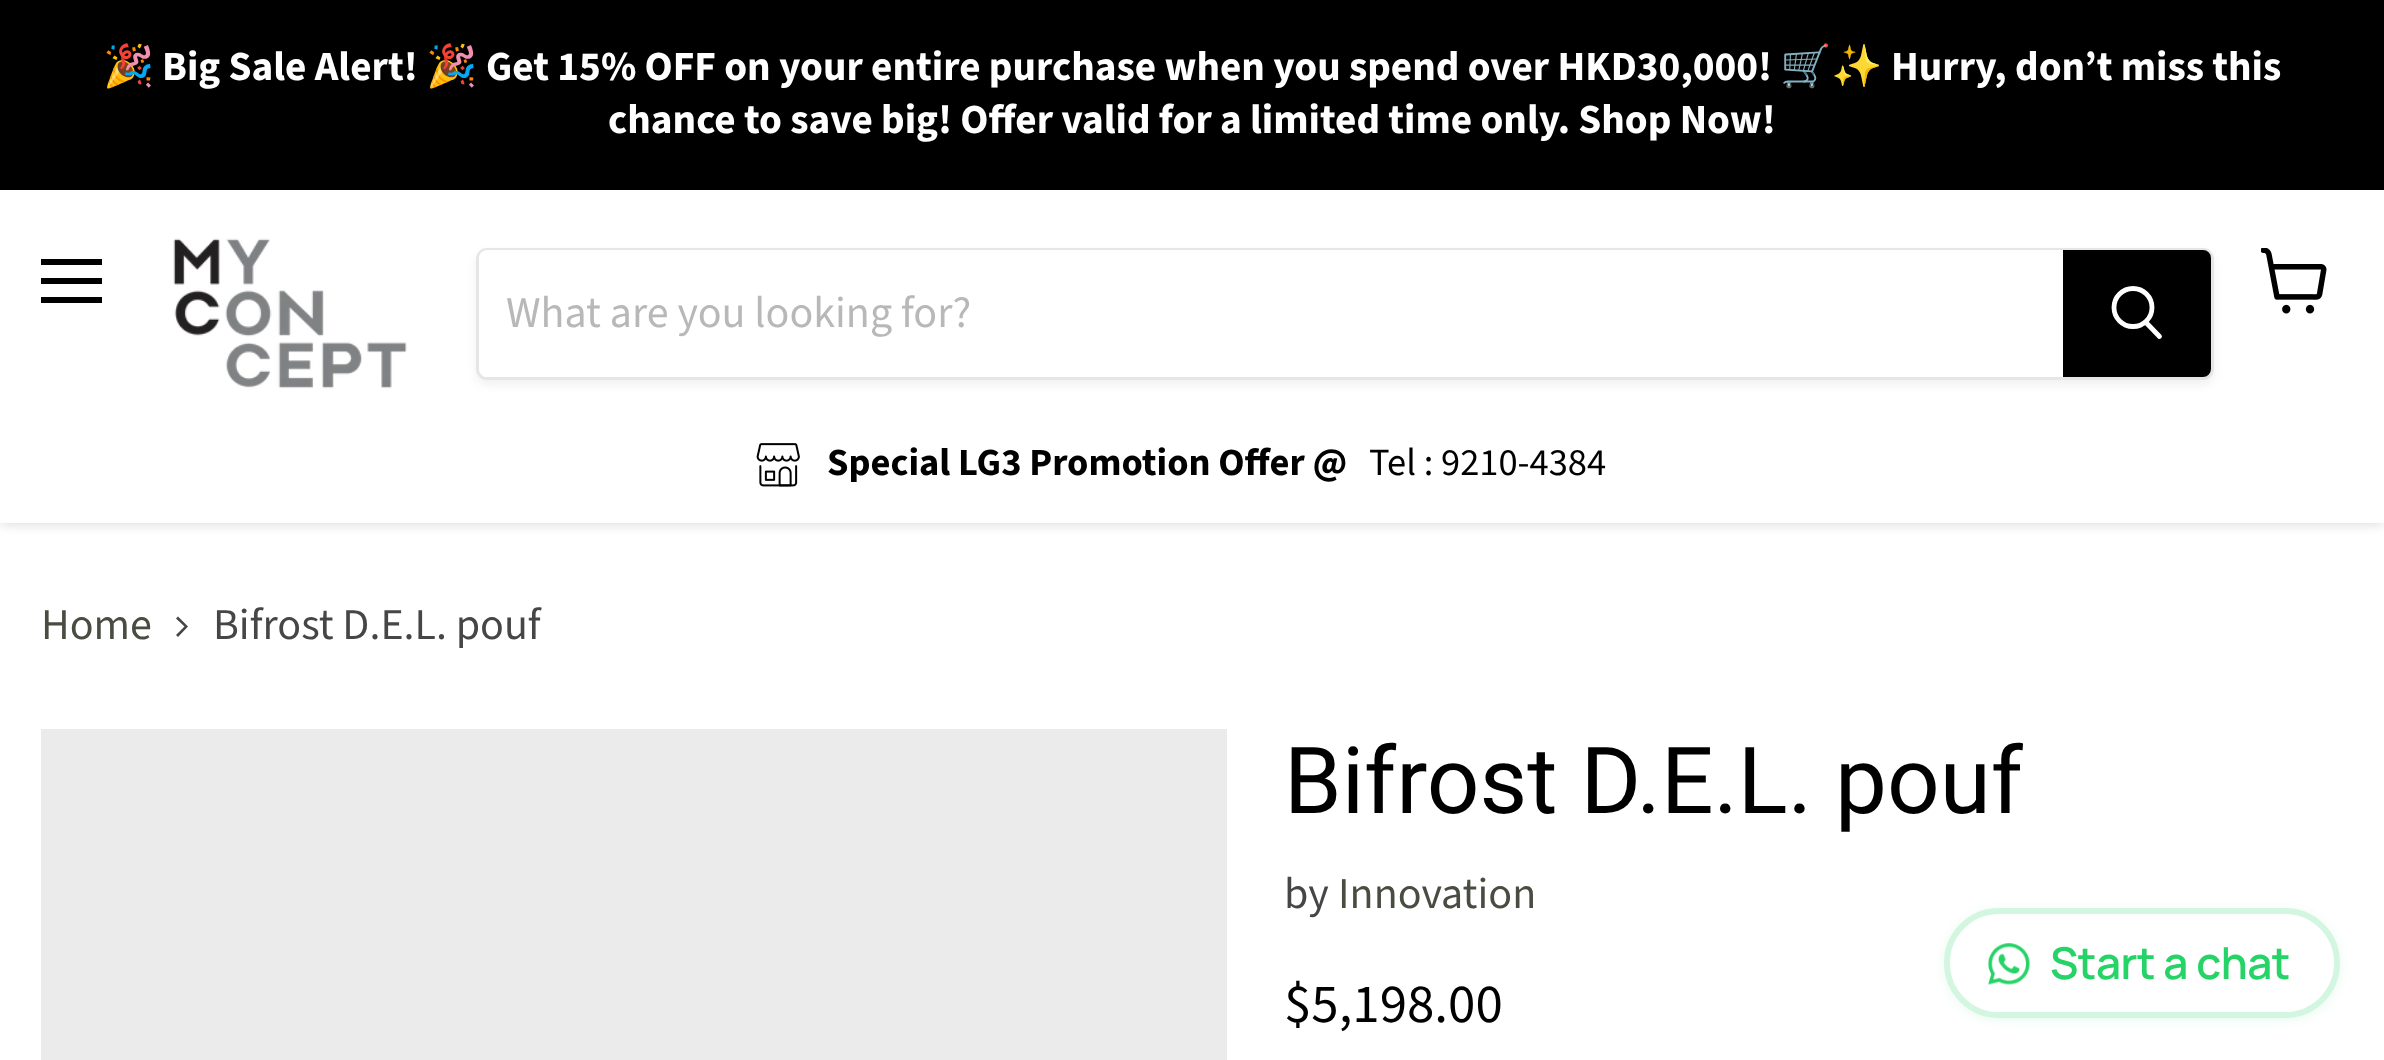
async function draw(canvas) {
  canvas.width = 2384;
  canvas.height = 1060;
  const ctx = canvas.getContext('2d');
  ctx.miterLimit = 4;
  ctx.fontKerning = 'normal';
  function label(s, x, y, font, color) {
    ctx.font = font;
    ctx.fillStyle = color;
    ctx.fillText(s, x, y);
  }
  function rect(x, y, w, h, color) {
    ctx.fillStyle = color;
    ctx.fillRect(x, y, w, h);
  }
  function roundedRect(x, y, w, h, r, color) {
    ctx.fillStyle = color;
    ctx.beginPath();
    ctx.roundRect(x, y, w, h, r);
    ctx.fill();
  }
  async function image(src, x, y, w, h) {
    const img = new Image();
    img.src = src;
    await img.decode();
    ctx.drawImage(img, x, y, w, h);
  }
  let path;

  rect(0, 0, 2384, 1060, '#fff');
  ctx.fillStyle = '#80808040';
  ctx.filter = 'blur(5.5px)';
  ctx.beginPath();
  ctx.rect(0, 193, 2384, 332);
  ctx.fill();
  ctx.filter = 'none';
  rect(0, 0, 2384, 190, '#000');
  label('🎉', 103, 80, 'bold 41.25px Noto Color Emoji', '#fff');
  label('Big Sale Alert!', 162, 80, 'bold 41.25px Source Sans Pro', '#fff');
  label('🎉', 426, 80, 'bold 41.25px Noto Color Emoji', '#fff');
  label('Get 15% OFF on your entire purchase when you spend over HKD30,000!', 486, 80, 'bold 41.25px Source Sans Pro', '#fff');
  label('🛒✨', 1780, 80, 'bold 41.25px Noto Color Emoji', '#fff');
  label('Hurry, don’t miss this', 1891, 80, 'bold 41.25px Source Sans Pro', '#fff');
  label('chance to save big! Offer valid for a limited time only. Shop Now!', 608, 133, 'bold 41.25px Source Sans Pro', '#fff');
  rect(0, 190, 2384, 333, '#fff');
  rect(41, 259, 61, 6, '#000');
  rect(41, 278, 61, 6, '#000');
  rect(41, 297, 61, 6, '#000');
  await image('assets/img1.png', 2261, 248, 66, 66);
  await image('assets/img2.png', 173, 238, 234, 151);
  ctx.save();
  path = new Path2D('M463 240H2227V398H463ZM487 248H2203C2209 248 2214 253 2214 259V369C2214 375 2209 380 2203 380H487C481 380 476 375 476 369V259C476 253 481 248 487 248Z');
  ctx.clip(path, 'evenodd');
  ctx.fillStyle = '#8080801c';
  ctx.filter = 'blur(4px)';
  ctx.beginPath();
  ctx.roundRect(476, 253, 1738, 132, 11);
  ctx.fill();
  ctx.filter = 'none';
  ctx.restore();
  ctx.beginPath();
  ctx.roundRect(477.5, 249.5, 1735, 129, 9.5);
  ctx.strokeStyle = '#80808033';
  ctx.lineWidth = 3;
  ctx.stroke();
  ctx.fillStyle = '#fff';
  ctx.beginPath();
  ctx.roundRect(479, 250, 1584, 127, [8, 0, 0, 8]);
  ctx.fill();
  label('What are you looking for?', 506, 327, '44px Source Sans Pro', '#b8b8b8');
  ctx.fillStyle = '#000';
  ctx.beginPath();
  ctx.roundRect(2064.5, 251.5, 145, 124, [0, 6.5, 6.5, 0]);
  ctx.fill();
  ctx.strokeStyle = '#000';
  ctx.stroke();
  path = new Path2D('M2159.5 336.5L2146.5 323');
  ctx.strokeStyle = '#fff';
  ctx.lineWidth = 4.8;
  ctx.lineCap = 'round';
  ctx.stroke(path);
  ctx.beginPath();
  ctx.arc(2133, 307.5, 19, 0, 2 * Math.PI);
  ctx.stroke();
  await image('assets/img3.png', 756, 443, 44, 44);
  label('Special LG3 Promotion Offer @', 827, 475, 'bold 38.5px Source Sans Pro', '#000');
  label('Tel : 9210-4384', 1369, 475, '38.5px Source Sans Pro', '#000');
  label('Home', 41, 639, '44px Source Sans Pro', '#494d41');
  ctx.fillStyle = '#464646';
  path = new Path2D('M176 635L178 637L188 626.5L178 616.5L176 618.5L184.5 626.5Z');
  ctx.fill(path, 'evenodd');
  label('Bifrost D.E.L. pouf', 213, 639, '44px Source Sans Pro', '#464646');
  rect(41, 729, 1186, 331, '#ebebeb');
  label('Bifrost D.E.L. pouf', 1284, 813, '92.5px Roboto', '#000');
  label('by', 1284, 908, '44px Source Sans Pro', '#464646');
  label('Innovation', 1338, 908, '44px Source Sans Pro', '#494d41');
  label('$5,198.00', 1284, 1022, '55px Source Sans Pro', '#000');
  ctx.fillStyle = '#25d3661a';
  ctx.filter = 'blur(5.5px)';
  ctx.beginPath();
  ctx.roundRect(1944, 910, 396, 110, 55);
  ctx.fill();
  ctx.filter = 'none';
  roundedRect(1944, 908, 396, 110, 55, '#fff');
  ctx.beginPath();
  ctx.roundRect(1947, 911, 390, 104, 52);
  ctx.strokeStyle = '#25d36633';
  ctx.lineWidth = 6;
  ctx.stroke();
  await image('assets/img4.png', 1988, 943, 42, 42);
  ctx.letterSpacing = '-0.5px';
  label('Start a chat', 2050, 979, '600 44px Manrope', '#25d366');
}

draw(document.querySelector('canvas'));
